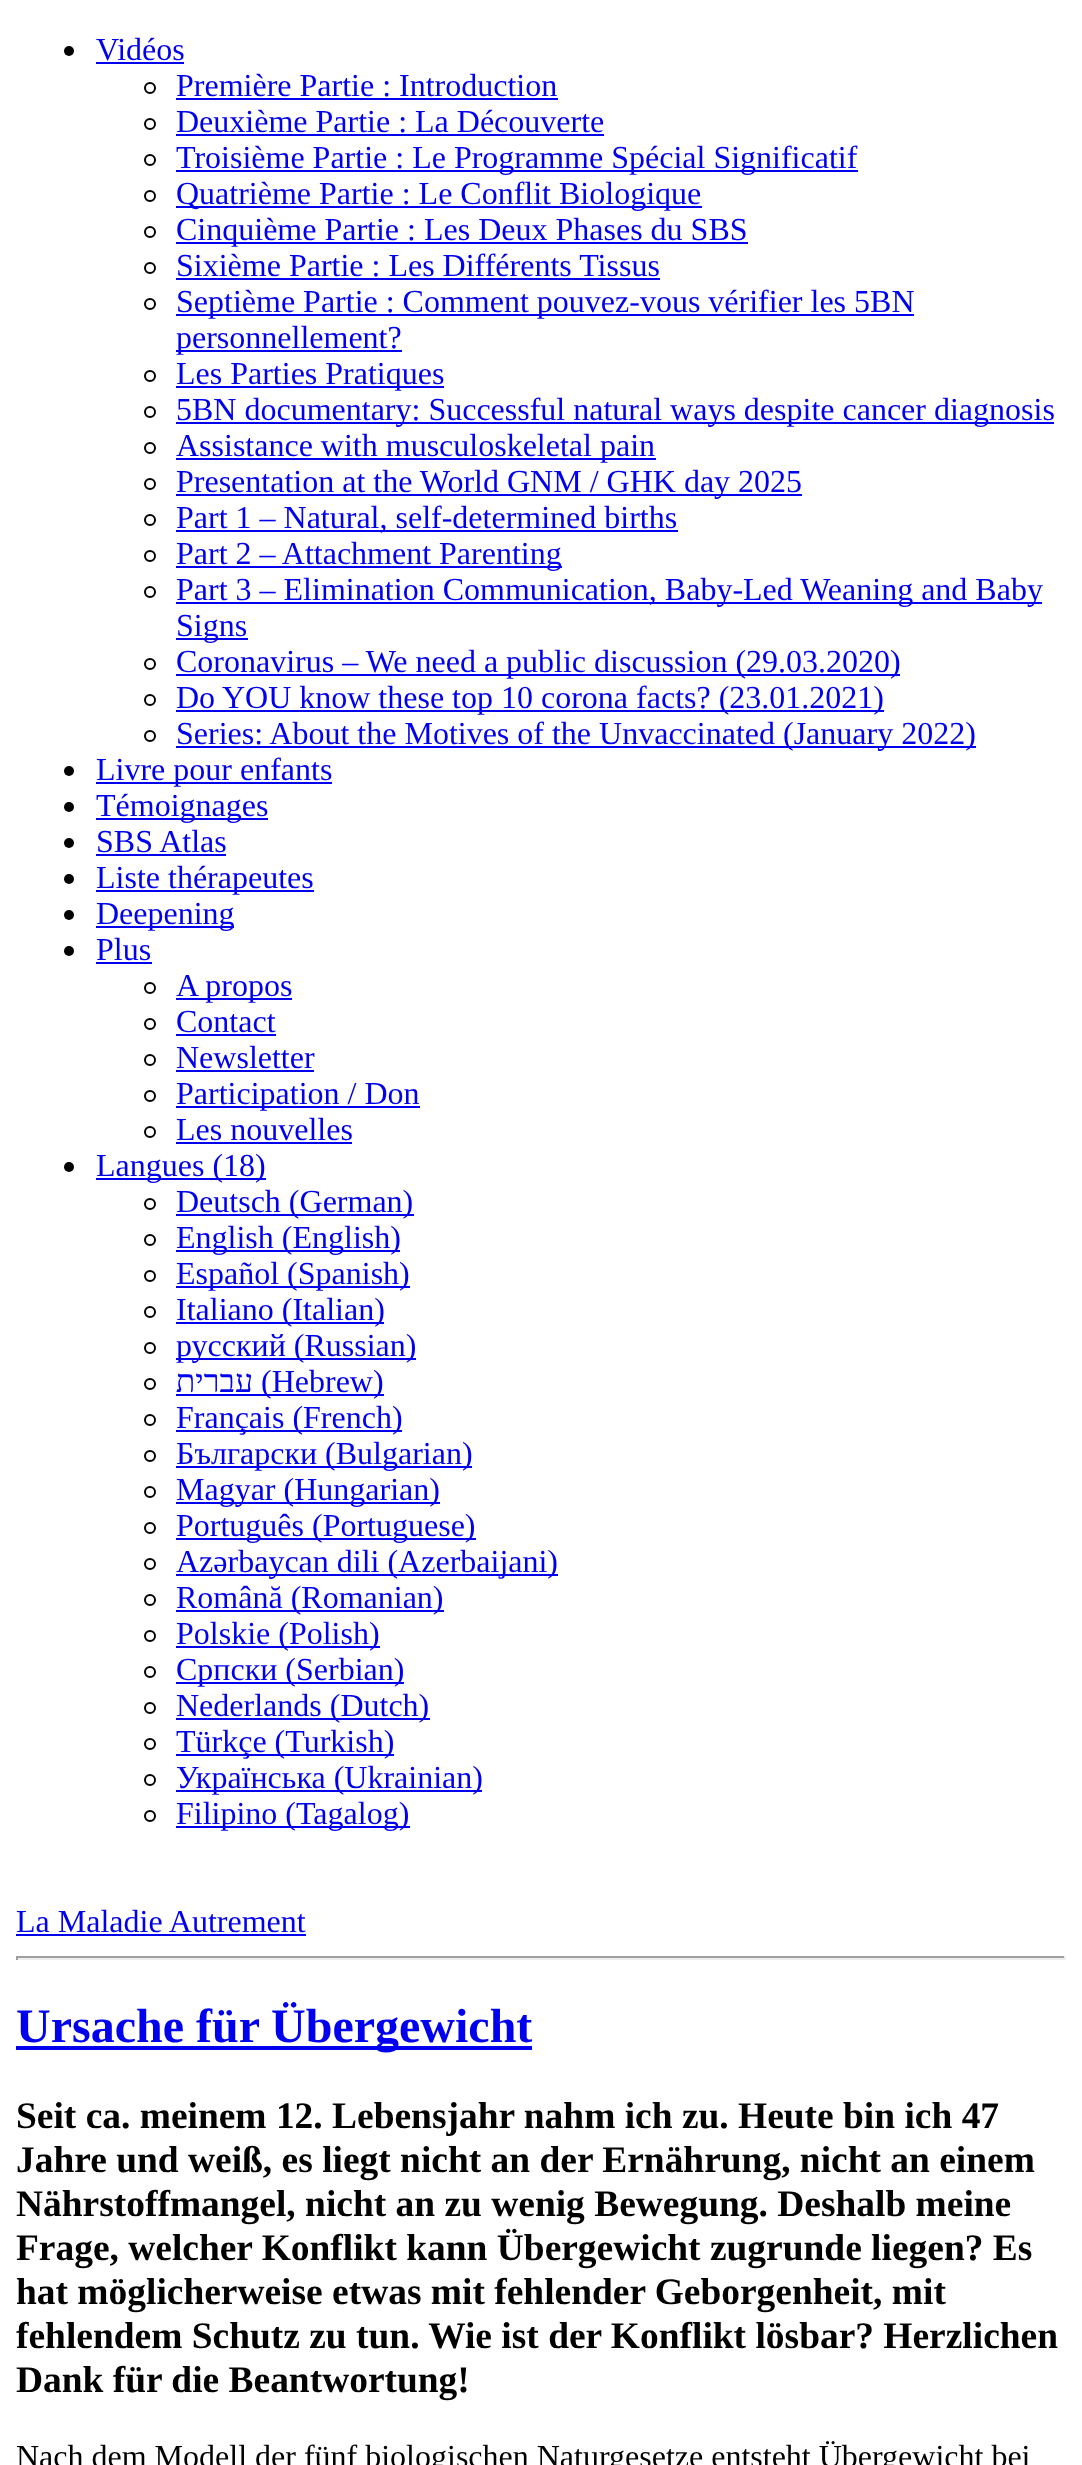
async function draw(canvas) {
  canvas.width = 1082;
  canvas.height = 2465;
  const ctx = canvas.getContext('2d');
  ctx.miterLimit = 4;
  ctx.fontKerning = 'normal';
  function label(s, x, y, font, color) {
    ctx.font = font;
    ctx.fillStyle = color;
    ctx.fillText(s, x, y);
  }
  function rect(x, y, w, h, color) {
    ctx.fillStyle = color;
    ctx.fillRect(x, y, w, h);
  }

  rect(0, 0, 1082, 2465, '#fff');
  ctx.fillStyle = '#000';
  ctx.beginPath();
  ctx.arc(69, 51, 5, 0, 2 * Math.PI);
  ctx.fill();
  label('Vidéos', 96, 60, '32px Liberation Serif', '#00e');
  rect(96, 62, 88, 2, '#00e');
  ctx.beginPath();
  ctx.arc(150, 88, 5, 0, 2 * Math.PI);
  ctx.strokeStyle = '#000';
  ctx.lineWidth = 2;
  ctx.stroke();
  label('Première Partie : Introduction', 176, 96, '32px Liberation Serif', '#00e');
  rect(176, 98, 382, 2, '#00e');
  ctx.beginPath();
  ctx.arc(150, 124, 5, 0, 2 * Math.PI);
  ctx.stroke();
  label('Deuxième Partie : La Découverte', 176, 132, '32px Liberation Serif', '#00e');
  rect(176, 134, 428, 2, '#00e');
  ctx.beginPath();
  ctx.arc(150, 160, 5, 0, 2 * Math.PI);
  ctx.stroke();
  rect(176, 170, 682, 2, '#00e');
  label('Troisième Partie : Le Programme Spécial Significatif', 176, 168, '32px Liberation Serif', '#00e');
  ctx.beginPath();
  ctx.arc(150, 196, 5, 0, 2 * Math.PI);
  ctx.stroke();
  rect(176, 206, 526, 2, '#00e');
  label('Quatrième Partie : Le Conflit Biologique', 176, 204, '32px Liberation Serif', '#00e');
  ctx.beginPath();
  ctx.arc(150, 232, 5, 0, 2 * Math.PI);
  ctx.stroke();
  rect(176, 242, 572, 2, '#00e');
  label('Cinquième Partie : Les Deux Phases du SBS', 176, 240, '32px Liberation Serif', '#00e');
  ctx.beginPath();
  ctx.arc(150, 268, 5, 0, 2 * Math.PI);
  ctx.stroke();
  label('Sixième Partie : Les Différents Tissus', 176, 276, '32px Liberation Serif', '#00e');
  rect(176, 278, 484, 2, '#00e');
  ctx.beginPath();
  ctx.arc(150, 304, 5, 0, 2 * Math.PI);
  ctx.stroke();
  rect(176, 314, 738, 2, '#00e');
  label('Septième Partie : Comment pouvez-vous vérifier les 5BN', 176, 312, '32px Liberation Serif', '#00e');
  rect(176, 350, 226, 2, '#00e');
  label('personnellement?', 176, 348, '32px Liberation Serif', '#00e');
  ctx.beginPath();
  ctx.arc(150, 376, 5, 0, 2 * Math.PI);
  ctx.stroke();
  rect(176, 386, 268, 2, '#00e');
  label('Les Parties Pratiques', 176, 384, '32px Liberation Serif', '#00e');
  ctx.beginPath();
  ctx.arc(150, 412, 5, 0, 2 * Math.PI);
  ctx.stroke();
  rect(176, 422, 878, 2, '#00e');
  label('5BN documentary: Successful natural ways despite cancer diagnosis', 176, 420, '32px Liberation Serif', '#00e');
  ctx.beginPath();
  ctx.arc(150, 448, 5, 0, 2 * Math.PI);
  ctx.stroke();
  rect(176, 458, 480, 2, '#00e');
  label('Assistance with musculoskeletal pain', 176, 456, '32px Liberation Serif', '#00e');
  ctx.beginPath();
  ctx.arc(150, 484, 5, 0, 2 * Math.PI);
  ctx.stroke();
  rect(176, 494, 626, 2, '#00e');
  label('Presentation at the World GNM / GHK day 2025', 176, 492, '32px Liberation Serif', '#00e');
  ctx.beginPath();
  ctx.arc(150, 520, 5, 0, 2 * Math.PI);
  ctx.stroke();
  rect(176, 530, 502, 2, '#00e');
  label('Part 1 – Natural, self-determined births', 176, 528, '32px Liberation Serif', '#00e');
  ctx.beginPath();
  ctx.arc(150, 556, 5, 0, 2 * Math.PI);
  ctx.stroke();
  rect(176, 566, 386, 2, '#00e');
  label('Part 2 – Attachment Parenting', 176, 564, '32px Liberation Serif', '#00e');
  ctx.beginPath();
  ctx.arc(150, 592, 5, 0, 2 * Math.PI);
  ctx.stroke();
  rect(176, 602, 866, 2, '#00e');
  label('Part 3 – Elimination Communication, Baby-Led Weaning and Baby', 176, 600, '32px Liberation Serif', '#00e');
  rect(176, 638, 72, 2, '#00e');
  label('Signs', 176, 636, '32px Liberation Serif', '#00e');
  ctx.beginPath();
  ctx.arc(150, 664, 5, 0, 2 * Math.PI);
  ctx.stroke();
  rect(176, 674, 724, 2, '#00e');
  label('Coronavirus – We need a public discussion (29.03.2020)', 176, 672, '32px Liberation Serif', '#00e');
  ctx.beginPath();
  ctx.arc(150, 700, 5, 0, 2 * Math.PI);
  ctx.stroke();
  rect(176, 710, 708, 2, '#00e');
  label('Do YOU know these top 10 corona facts? (23.01.2021)', 176, 708, '32px Liberation Serif', '#00e');
  ctx.beginPath();
  ctx.arc(150, 736, 5, 0, 2 * Math.PI);
  ctx.stroke();
  rect(176, 746, 800, 2, '#00e');
  label('Series: About the Motives of the Unvaccinated (January 2022)', 176, 744, '32px Liberation Serif', '#00e');
  ctx.fillStyle = '#000';
  ctx.beginPath();
  ctx.arc(69, 771, 5, 0, 2 * Math.PI);
  ctx.fill();
  rect(96, 782, 236, 2, '#00e');
  label('Livre pour enfants', 96, 780, '32px Liberation Serif', '#00e');
  ctx.fillStyle = '#000';
  ctx.beginPath();
  ctx.arc(69, 807, 5, 0, 2 * Math.PI);
  ctx.fill();
  rect(96, 818, 172, 2, '#00e');
  label('Témoignages', 96, 816, '32px Liberation Serif', '#00e');
  ctx.fillStyle = '#000';
  ctx.beginPath();
  ctx.arc(69, 843, 5, 0, 2 * Math.PI);
  ctx.fill();
  label('SBS Atlas', 96, 852, '32px Liberation Serif', '#00e');
  rect(96, 854, 130, 2, '#00e');
  ctx.fillStyle = '#000';
  ctx.beginPath();
  ctx.arc(69, 879, 5, 0, 2 * Math.PI);
  ctx.fill();
  rect(96, 890, 218, 2, '#00e');
  label('Liste thérapeutes', 96, 888, '32px Liberation Serif', '#00e');
  ctx.fillStyle = '#000';
  ctx.beginPath();
  ctx.arc(69, 915, 5, 0, 2 * Math.PI);
  ctx.fill();
  rect(96, 926, 138, 2, '#00e');
  label('Deepening', 96, 924, '32px Liberation Serif', '#00e');
  ctx.fillStyle = '#000';
  ctx.beginPath();
  ctx.arc(69, 951, 5, 0, 2 * Math.PI);
  ctx.fill();
  label('Plus', 96, 960, '32px Liberation Serif', '#00e');
  rect(96, 962, 56, 2, '#00e');
  ctx.beginPath();
  ctx.arc(150, 988, 5, 0, 2 * Math.PI);
  ctx.stroke();
  rect(176, 998, 116, 2, '#00e');
  label('A propos', 176, 996, '32px Liberation Serif', '#00e');
  ctx.beginPath();
  ctx.arc(150, 1024, 5, 0, 2 * Math.PI);
  ctx.stroke();
  label('Contact', 176, 1032, '32px Liberation Serif', '#00e');
  rect(176, 1034, 100, 2, '#00e');
  ctx.beginPath();
  ctx.arc(150, 1060, 5, 0, 2 * Math.PI);
  ctx.stroke();
  label('Newsletter', 176, 1068, '32px Liberation Serif', '#00e');
  rect(176, 1070, 138, 2, '#00e');
  ctx.beginPath();
  ctx.arc(150, 1096, 5, 0, 2 * Math.PI);
  ctx.stroke();
  rect(176, 1106, 244, 2, '#00e');
  label('Participation / Don', 176, 1104, '32px Liberation Serif', '#00e');
  ctx.beginPath();
  ctx.arc(150, 1132, 5, 0, 2 * Math.PI);
  ctx.stroke();
  label('Les nouvelles', 176, 1140, '32px Liberation Serif', '#00e');
  rect(176, 1142, 176, 2, '#00e');
  ctx.fillStyle = '#000';
  ctx.beginPath();
  ctx.arc(69, 1167, 5, 0, 2 * Math.PI);
  ctx.fill();
  rect(96, 1178, 170, 2, '#00e');
  label('Langues (18)', 96, 1176, '32px Liberation Serif', '#00e');
  ctx.beginPath();
  ctx.arc(150, 1204, 5, 0, 2 * Math.PI);
  ctx.stroke();
  rect(176, 1214, 238, 2, '#00e');
  label('Deutsch (German)', 176, 1212, '32px Liberation Serif', '#00e');
  ctx.beginPath();
  ctx.arc(150, 1240, 5, 0, 2 * Math.PI);
  ctx.stroke();
  rect(176, 1250, 224, 2, '#00e');
  label('English (English)', 176, 1248, '32px Liberation Serif', '#00e');
  ctx.beginPath();
  ctx.arc(150, 1276, 5, 0, 2 * Math.PI);
  ctx.stroke();
  rect(176, 1286, 234, 2, '#00e');
  label('Español (Spanish)', 176, 1284, '32px Liberation Serif', '#00e');
  ctx.beginPath();
  ctx.arc(150, 1312, 5, 0, 2 * Math.PI);
  ctx.stroke();
  rect(176, 1322, 208, 2, '#00e');
  label('Italiano (Italian)', 176, 1320, '32px Liberation Serif', '#00e');
  ctx.beginPath();
  ctx.arc(150, 1348, 5, 0, 2 * Math.PI);
  ctx.stroke();
  rect(176, 1358, 240, 2, '#00e');
  label('русский (Russian)', 176, 1356, '32px Liberation Serif', '#00e');
  ctx.beginPath();
  ctx.arc(150, 1384, 5, 0, 2 * Math.PI);
  ctx.stroke();
  ctx.direction = 'rtl';
  label('עברית', 253, 1392, '32px Liberation Serif', '#00e');
  rect(176, 1394, 208, 2, '#00e');
  ctx.direction = 'ltr';
  label('(Hebrew)', 261, 1392, '32px Liberation Serif', '#00e');
  ctx.beginPath();
  ctx.arc(150, 1420, 5, 0, 2 * Math.PI);
  ctx.stroke();
  rect(176, 1430, 226, 2, '#00e');
  label('Français (French)', 176, 1428, '32px Liberation Serif', '#00e');
  ctx.beginPath();
  ctx.arc(150, 1456, 5, 0, 2 * Math.PI);
  ctx.stroke();
  rect(176, 1466, 296, 2, '#00e');
  label('Български (Bulgarian)', 176, 1464, '32px Liberation Serif', '#00e');
  ctx.beginPath();
  ctx.arc(150, 1492, 5, 0, 2 * Math.PI);
  ctx.stroke();
  rect(176, 1502, 264, 2, '#00e');
  label('Magyar (Hungarian)', 176, 1500, '32px Liberation Serif', '#00e');
  ctx.beginPath();
  ctx.arc(150, 1528, 5, 0, 2 * Math.PI);
  ctx.stroke();
  rect(176, 1538, 300, 2, '#00e');
  label('Português (Portuguese)', 176, 1536, '32px Liberation Serif', '#00e');
  ctx.beginPath();
  ctx.arc(150, 1564, 5, 0, 2 * Math.PI);
  ctx.stroke();
  rect(176, 1574, 382, 2, '#00e');
  label('Azərbaycan dili (Azerbaijani)', 176, 1572, '32px Liberation Serif', '#00e');
  ctx.beginPath();
  ctx.arc(150, 1600, 5, 0, 2 * Math.PI);
  ctx.stroke();
  rect(176, 1610, 268, 2, '#00e');
  label('Română (Romanian)', 176, 1608, '32px Liberation Serif', '#00e');
  ctx.beginPath();
  ctx.arc(150, 1636, 5, 0, 2 * Math.PI);
  ctx.stroke();
  rect(176, 1646, 204, 2, '#00e');
  label('Polskie (Polish)', 176, 1644, '32px Liberation Serif', '#00e');
  ctx.beginPath();
  ctx.arc(150, 1672, 5, 0, 2 * Math.PI);
  ctx.stroke();
  rect(176, 1682, 228, 2, '#00e');
  label('Српски (Serbian)', 176, 1680, '32px Liberation Serif', '#00e');
  ctx.beginPath();
  ctx.arc(150, 1708, 5, 0, 2 * Math.PI);
  ctx.stroke();
  rect(176, 1718, 254, 2, '#00e');
  label('Nederlands (Dutch)', 176, 1716, '32px Liberation Serif', '#00e');
  ctx.beginPath();
  ctx.arc(150, 1744, 5, 0, 2 * Math.PI);
  ctx.stroke();
  rect(176, 1754, 218, 2, '#00e');
  label('Türkçe (Turkish)', 176, 1752, '32px Liberation Serif', '#00e');
  ctx.beginPath();
  ctx.arc(150, 1780, 5, 0, 2 * Math.PI);
  ctx.stroke();
  rect(176, 1790, 306, 2, '#00e');
  label('Українська (Ukrainian)', 176, 1788, '32px Liberation Serif', '#00e');
  ctx.beginPath();
  ctx.arc(150, 1816, 5, 0, 2 * Math.PI);
  ctx.stroke();
  rect(176, 1826, 234, 2, '#00e');
  label('Filipino (Tagalog)', 176, 1824, '32px Liberation Serif', '#00e');
  label('La Maladie Autrement', 16, 1932, '32px Liberation Serif', '#00e');
  rect(16, 1934, 290, 2, '#00e');
  rect(16, 1956, 1050, 2, '#9f9f9f');
  rect(1064, 1956, 2, 4, '#eee');
  rect(16, 1958, 1050, 2, '#eee');
  rect(16, 1956, 2, 4, '#9f9f9f');
  rect(16, 2046, 516, 4, '#00e');
  label('Ursache für Übergewicht', 16, 2042, 'bold 48px Liberation Serif', '#00e');
  label('Seit ca. meinem 12. Lebensjahr nahm ich zu. Heute bin ich 47', 16, 2128, 'bold 37.45px Liberation Serif', '#000');
  label('Jahre und weiß, es liegt nicht an der Ernährung, nicht an einem', 16, 2172, 'bold 37.45px Liberation Serif', '#000');
  label('Nährstoffmangel, nicht an zu wenig Bewegung. Deshalb meine', 16, 2216, 'bold 37.45px Liberation Serif', '#000');
  label('Frage, welcher Konflikt kann Übergewicht zugrunde liegen? Es', 16, 2260, 'bold 37.45px Liberation Serif', '#000');
  label('hat möglicherweise etwas mit fehlender Geborgenheit, mit', 16, 2304, 'bold 37.45px Liberation Serif', '#000');
  label('fehlendem Schutz zu tun. Wie ist der Konflikt lösbar? Herzlichen', 16, 2348, 'bold 37.45px Liberation Serif', '#000');
  label('Dank für die Beantwortung!', 16, 2392, 'bold 37.45px Liberation Serif', '#000');
  label('Nach dem Modell der fünf biologischen Naturgesetze entsteht Übergewicht bei', 16, 2467, '32px Liberation Serif', '#000');
}

draw(document.querySelector('canvas'));
